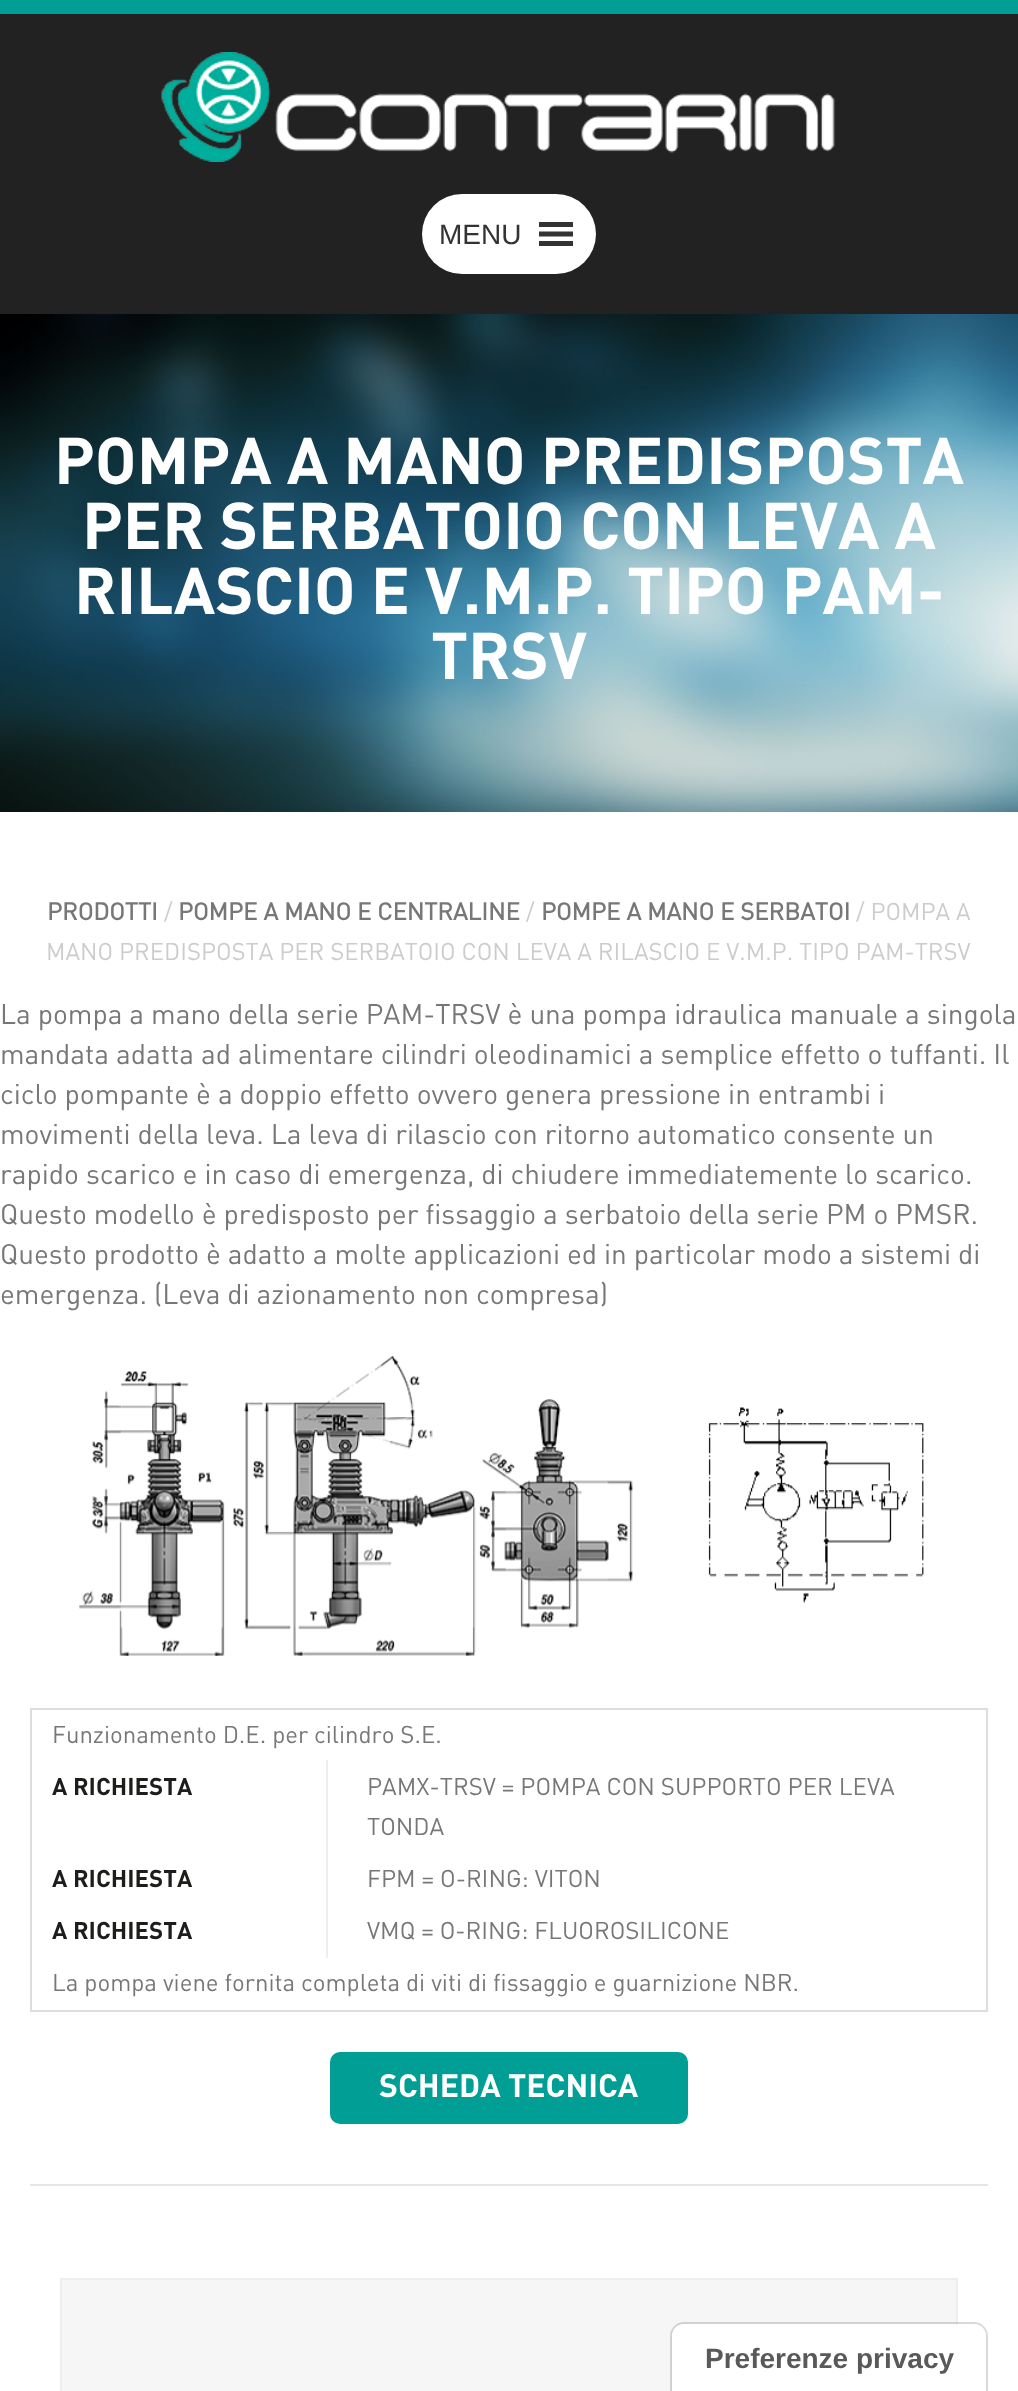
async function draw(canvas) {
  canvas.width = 1018;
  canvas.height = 2391;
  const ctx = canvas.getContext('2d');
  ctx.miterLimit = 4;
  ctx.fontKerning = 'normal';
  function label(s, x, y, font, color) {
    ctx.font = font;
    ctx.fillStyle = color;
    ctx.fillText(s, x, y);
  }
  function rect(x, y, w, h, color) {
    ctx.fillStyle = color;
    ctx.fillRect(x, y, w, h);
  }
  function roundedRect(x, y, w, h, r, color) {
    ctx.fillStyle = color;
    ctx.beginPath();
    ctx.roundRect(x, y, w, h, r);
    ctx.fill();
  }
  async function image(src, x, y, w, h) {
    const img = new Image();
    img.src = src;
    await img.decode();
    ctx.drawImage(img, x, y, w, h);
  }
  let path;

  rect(0, 0, 1018, 2391, '#fff');
  rect(0, 14, 1018, 300, '#222');
  rect(0, 0, 1018, 14, '#009e94');
  await image('assets/img1.png', 161, 52, 674, 110);
  roundedRect(422, 194, 174, 80, 40, '#fff');
  label('MENU', 439, 244, '28px Liberation Sans', '#333');
  path = new Path2D('M539 246H573V241H539ZM539 222V227H573V222ZM539 236.5H573V231.5H539Z');
  ctx.fill(path);
  await image('assets/img2.png', 0, 314, 1018, 498);
  label('POMPA A MANO PREDISPOSTA', 54, 484, 'bold 65px DIN', '#fff');
  label('PER SERBATOIO CON LEVA A', 82, 549, 'bold 65px DIN', '#fff');
  label('RILASCIO E V.M.P. TIPO PAM-', 74, 614, 'bold 65px DIN', '#fff');
  label('TRSV', 431, 679, 'bold 65px DIN', '#fff');
  label('PRODOTTI', 47, 920, 'bold 23.9px "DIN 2"', '#777');
  label('/', 164, 920, '23.9px DIN', '#ccc');
  label('POMPE A MANO E CENTRALINE', 178, 920, 'bold 23.9px "DIN 2"', '#777');
  label('/', 526, 920, '23.9px DIN', '#ccc');
  label('POMPE A MANO E SERBATOI', 541, 920, 'bold 23.9px "DIN 2"', '#777');
  label('/ POMPA A', 856, 920, '23.9px DIN', '#ccc');
  label('MANO PREDISPOSTA PER SERBATOIO CON LEVA A RILASCIO E V.M.P. TIPO PAM-TRSV', 46, 960, '23.9px DIN', '#ccc');
  label('La pompa a mano della serie PAM-TRSV è una pompa idraulica manuale a singola', 0, 1024, '28px DIN', '#777');
  label('mandata adatta ad alimentare cilindri oleodinamici a semplice effetto o tuffanti. Il', 0, 1064, '28px DIN', '#777');
  label('ciclo pompante è a doppio effetto ovvero genera pressione in entrambi i', 0, 1104, '28px DIN', '#777');
  label('movimenti della leva. La leva di rilascio con ritorno automatico consente un', 0, 1144, '28px DIN', '#777');
  label('rapido scarico e in caso di emergenza, di chiudere immediatemente lo scarico.', 0, 1184, '28px DIN', '#777');
  label('Questo modello è predisposto per fissaggio a serbatoio della serie PM o PMSR.', 0, 1224, '28px DIN', '#777');
  label('Questo prodotto è adatto a molte applicazioni ed in particolar modo a sistemi di', 0, 1264, '28px DIN', '#777');
  label('emergenza. (Leva di azionamento non compresa)', 0, 1304, '28px DIN', '#777');
  await image('assets/img3.png', 79, 1356, 845, 300);
  ctx.strokeStyle = '#ddd';
  ctx.lineWidth = 2;
  ctx.strokeRect(31, 1709, 956, 302);
  label('Funzionamento D.E. per cilindro S.E.', 52, 1743, '24px DIN', '#777');
  label('A RICHIESTA', 52, 1795, 'bold 24px DIN', '#1d1d1b');
  label('PAMX-TRSV = POMPA CON SUPPORTO PER LEVA', 367, 1795, '24px DIN', '#777');
  label('TONDA', 367, 1835, '24px DIN', '#777');
  label('A RICHIESTA', 52, 1887, 'bold 24px DIN', '#1d1d1b');
  label('FPM = O-RING: VITON', 367, 1887, '24px DIN', '#777');
  rect(326, 1760, 2, 198, '#eee');
  label('A RICHIESTA', 52, 1939, 'bold 24px DIN', '#1d1d1b');
  label('VMQ = O-RING: FLUOROSILICONE', 367, 1939, '24px DIN', '#777');
  label('La pompa viene fornita completa di viti di fissaggio e guarnizione NBR.', 52, 1991, '24px DIN', '#777');
  roundedRect(330, 2052, 358, 72, 10, '#009e94');
  label('SCHEDA TECNICA', 379, 2097, 'bold 32px DIN', '#fff');
  rect(30, 2184, 958, 2, '#e5e5e5');
  ctx.fillStyle = '#f6f6f6';
  ctx.beginPath();
  ctx.rect(61, 2279, 896, 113);
  ctx.fill();
  ctx.strokeStyle = '#eee';
  ctx.stroke();
  path = new Path2D('M684 2323H974C981 2323 987 2329 987 2336V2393H671V2336C671 2329 677 2323 684 2323Z');
  ctx.strokeStyle = '#00000026';
  ctx.stroke(path);
  ctx.fillStyle = '#fff';
  path = new Path2D('M684 2324H974C980.5 2324 986 2329.5 986 2336V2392H672V2336C672 2329.5 677.5 2324 684 2324Z');
  ctx.fill(path);
  label('Preferenze privacy', 705, 2368, 'bold 28px Liberation Sans', '#595959');
}

draw(document.querySelector('canvas'));
